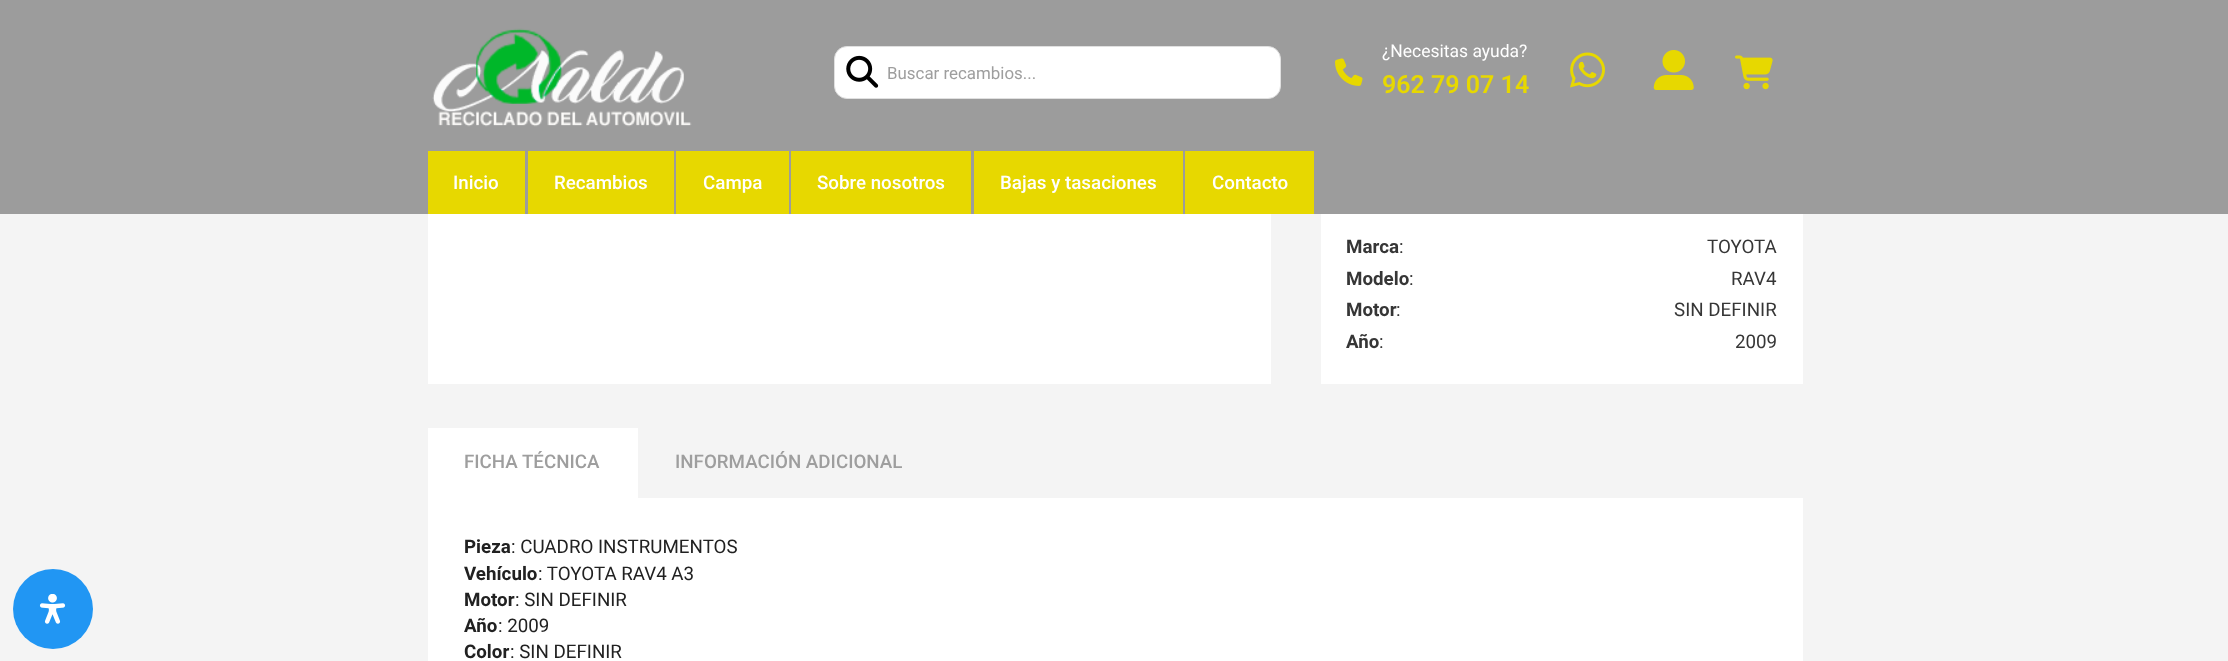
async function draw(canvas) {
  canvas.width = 2228;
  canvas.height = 661;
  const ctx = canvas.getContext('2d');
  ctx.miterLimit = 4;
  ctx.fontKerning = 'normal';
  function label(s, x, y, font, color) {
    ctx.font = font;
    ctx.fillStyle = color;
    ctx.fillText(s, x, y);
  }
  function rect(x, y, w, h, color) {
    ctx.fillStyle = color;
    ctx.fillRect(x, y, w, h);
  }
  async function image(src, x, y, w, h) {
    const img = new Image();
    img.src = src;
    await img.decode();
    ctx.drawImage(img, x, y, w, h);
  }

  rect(0, 0, 2228, 661, '#f4f4f4');
  rect(0, 0, 2228, 214, '#9c9c9c');
  await image('assets/img1.png', 432, 28, 260, 99);
  ctx.fillStyle = '#fff';
  ctx.beginPath();
  ctx.roundRect(834.5, 46.5, 446, 52, 12.5);
  ctx.fill();
  ctx.strokeStyle = '#e0e0e0';
  ctx.stroke();
  await image('assets/img2.png', 846, 55, 33, 33);
  label('Buscar recambios...', 887, 79, '16.9px Roboto', '#9e9e9e');
  await image('assets/img3.png', 1335, 58, 28, 28);
  label('¿Necesitas ayuda?', 1382, 57, '17.5px Roboto', '#fff');
  label('962 79 07 14', 1382, 93, '600 25px Roboto', '#e7d800');
  await image('assets/img4.png', 1570, 52, 35, 36);
  await image('assets/img5.png', 1653, 50, 41, 40);
  await image('assets/img6.png', 1735, 55, 38, 35);
  rect(428, 151, 97, 63, '#e7d800');
  label('Inicio', 453, 189, '500 18.75px Roboto', '#fff');
  rect(528, 151, 146, 63, '#e7d800');
  label('Recambios', 554, 189, '500 18.75px Roboto', '#fff');
  rect(676, 151, 113, 63, '#e7d800');
  label('Campa', 703, 189, '500 18.75px Roboto', '#fff');
  rect(791, 151, 180, 63, '#e7d800');
  label('Sobre nosotros', 817, 189, '500 18.75px Roboto', '#fff');
  rect(974, 151, 209, 63, '#e7d800');
  label('Bajas y tasaciones', 1000, 189, '500 18.75px Roboto', '#fff');
  rect(1185, 151, 129, 63, '#e7d800');
  label('Contacto', 1212, 189, '500 18.75px Roboto', '#fff');
  ctx.fillStyle = '#2196f3';
  ctx.beginPath();
  ctx.arc(53, 609, 40, 0, 2 * Math.PI);
  ctx.fill();
  await image('assets/img7.png', 39, 594, 27, 30);
  rect(428, 214, 843, 170, '#fff');
  rect(1321, 214, 482, 170, '#fff');
  label('Marca', 1346, 253, 'bold 18.75px Roboto', '#363636');
  label(':', 1399, 253, '18.75px Roboto', '#363636');
  label('TOYOTA', 1707, 253, '18.75px Roboto', '#363636');
  label('Modelo', 1346, 285, 'bold 18.75px Roboto', '#363636');
  label(':', 1409, 285, '18.75px Roboto', '#363636');
  label('RAV4', 1731, 285, '18.75px Roboto', '#363636');
  label('Motor', 1346, 316, 'bold 18.75px Roboto', '#363636');
  label(':', 1396, 316, '18.75px Roboto', '#363636');
  label('SIN DEFINIR', 1674, 316, '18.75px Roboto', '#363636');
  label('Año', 1346, 348, 'bold 18.75px Roboto', '#363636');
  label(':', 1379, 348, '18.75px Roboto', '#363636');
  label('2009', 1735, 348, '18.75px Roboto', '#363636');
  rect(428, 428, 210, 70, '#fff');
  label('FICHA TÉCNICA', 464, 468, '500 18.75px Roboto', '#9e9e9e');
  label('INFORMACIÓN ADICIONAL', 675, 468, '500 18.75px Roboto', '#9e9e9e');
  rect(428, 498, 1375, 163, '#fff');
  label('Pieza', 464, 553, 'bold 18.75px Roboto', '#212121');
  label(': CUADRO INSTRUMENTOS', 511, 553, '18.75px Roboto', '#212121');
  label('Vehículo', 464, 580, 'bold 18.75px Roboto', '#212121');
  label(': TOYOTA RAV4 A3', 538, 580, '18.75px Roboto', '#212121');
  label('Motor', 464, 606, 'bold 18.75px Roboto', '#212121');
  label(': SIN DEFINIR', 515, 606, '18.75px Roboto', '#212121');
  label('Año', 464, 632, 'bold 18.75px Roboto', '#212121');
  label(': 2009', 498, 632, '18.75px Roboto', '#212121');
  label('Color', 464, 658, 'bold 18.75px Roboto', '#212121');
  label(': SIN DEFINIR', 510, 658, '18.75px Roboto', '#212121');
}

draw(document.querySelector('canvas'));
